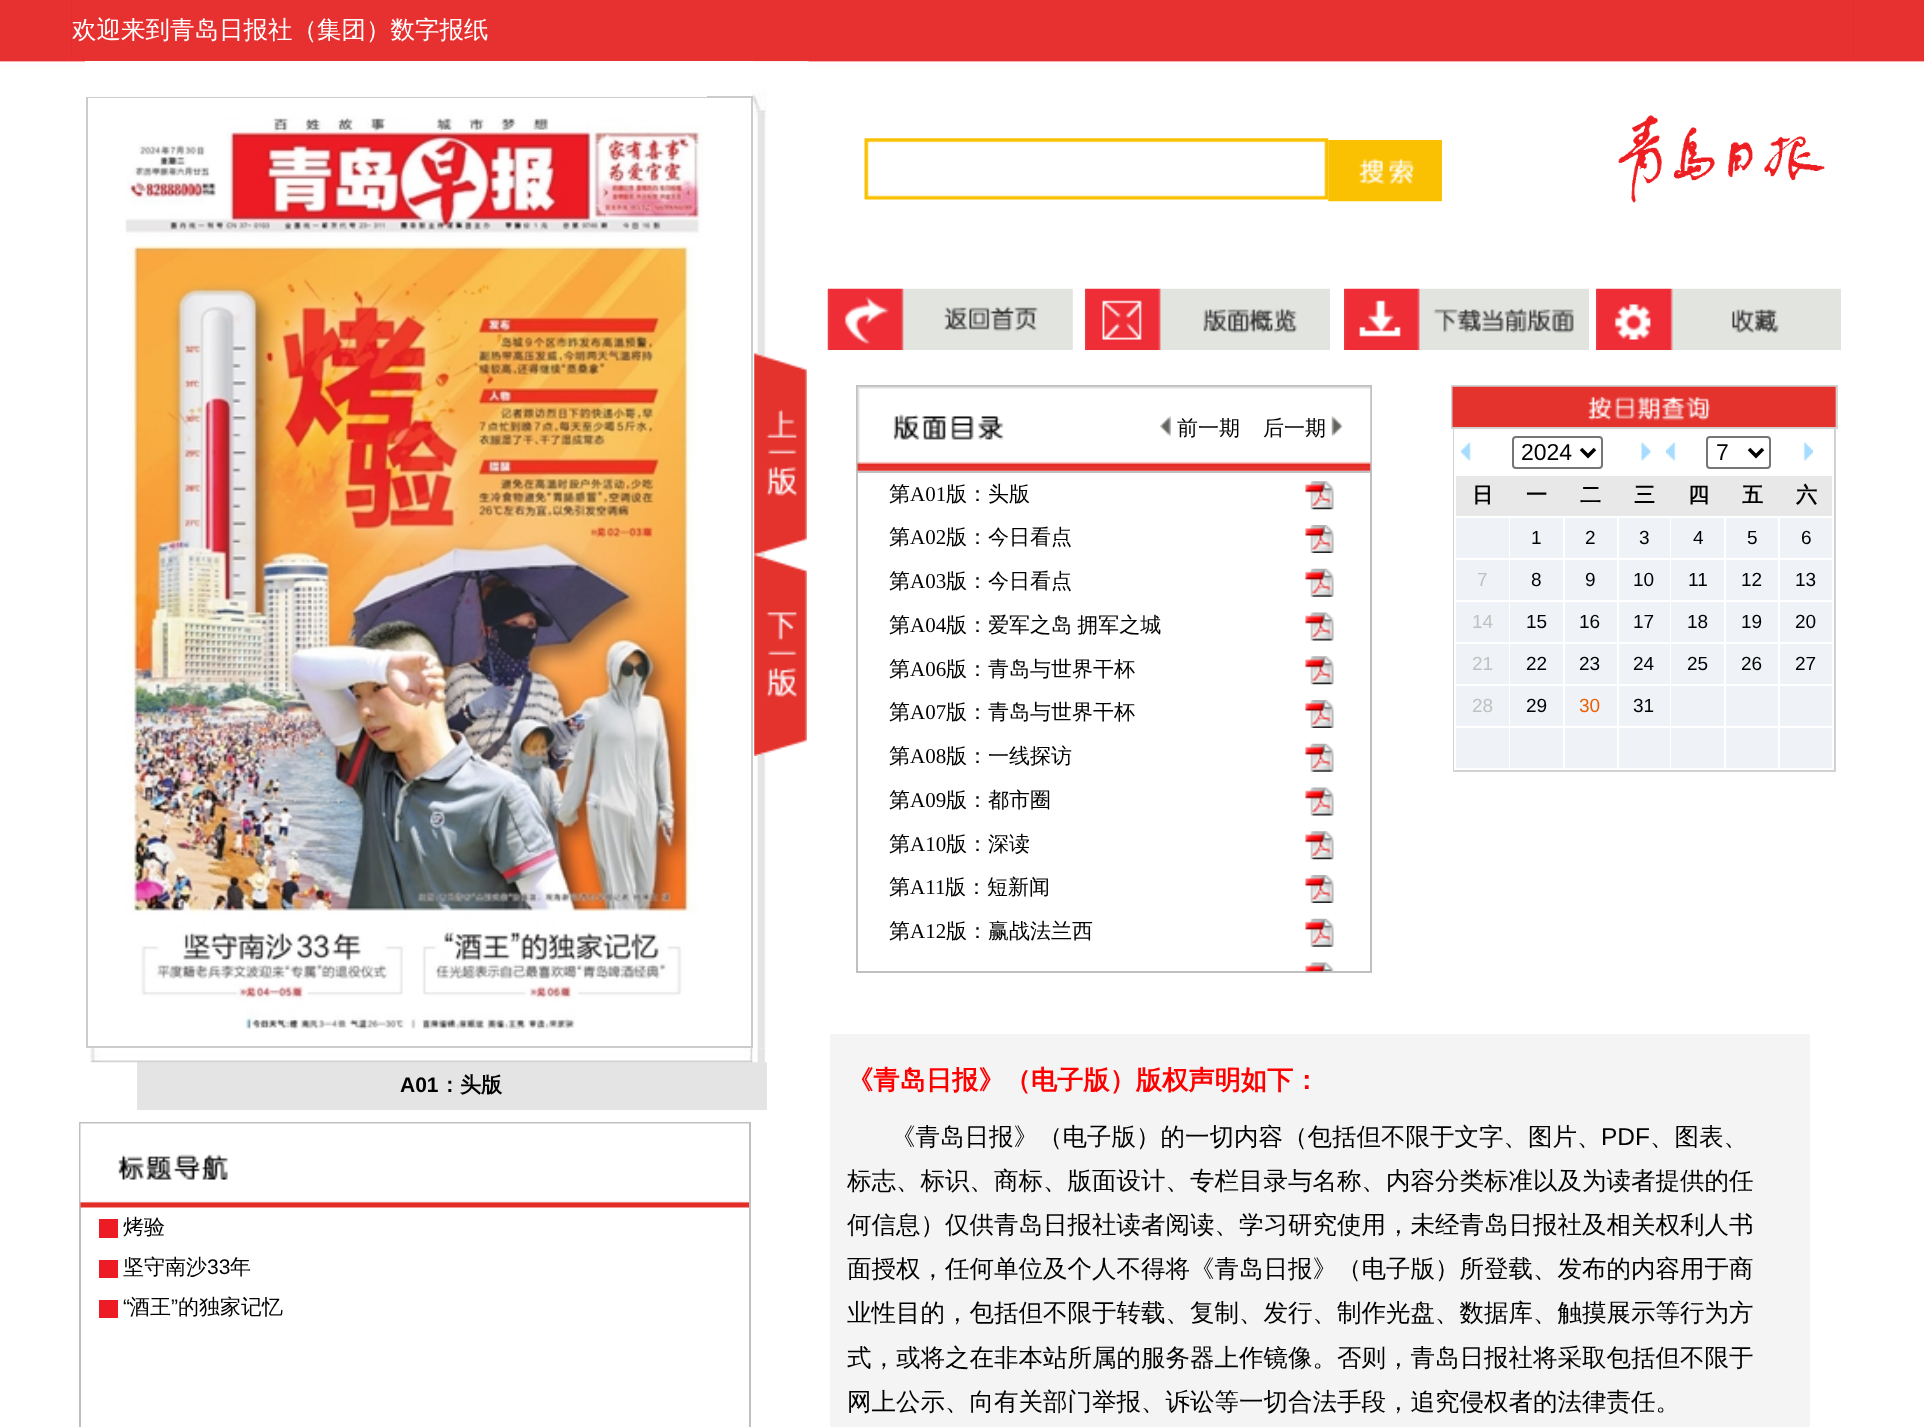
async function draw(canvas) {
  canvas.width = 1924;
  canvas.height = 1427;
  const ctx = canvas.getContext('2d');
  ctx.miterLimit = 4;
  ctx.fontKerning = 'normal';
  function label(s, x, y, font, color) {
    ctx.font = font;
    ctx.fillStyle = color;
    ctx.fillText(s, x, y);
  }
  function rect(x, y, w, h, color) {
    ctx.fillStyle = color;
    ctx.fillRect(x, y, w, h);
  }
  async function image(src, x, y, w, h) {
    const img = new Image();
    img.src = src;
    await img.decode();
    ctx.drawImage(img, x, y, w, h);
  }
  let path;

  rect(0, 0, 1924, 1427, '#fff');
  await image('assets/img1.png', 0, 61, 1924, 1366);
  rect(0, 0, 1924, 61, '#e73130');
  await image('assets/img2.png', 71, 0, 1783, 61);
  rect(72, 0, 1781, 61, '#e73130');
  label('欢迎来到青岛日报社（集团）数字报纸', 72, 38, '500 24.5px WenQuanYi Zen Hei', '#fff');
  rect(707, 61, 46, 7, '#fff');
  await image('assets/img3.png', 752, 61, 57, 988);
  ctx.strokeStyle = '#ccc';
  ctx.lineWidth = 2;
  ctx.strokeRect(87, 97, 665, 950);
  rect(85, 61, 622, 36, '#fff');
  await image('assets/img4.png', 754, 353, 53, 202);
  await image('assets/img5.png', 754, 554, 53, 202);
  await image('assets/img6.png', 125, 116, 578, 913);
  rect(137, 1062, 630, 48, '#e4e4e4');
  await image('assets/img7.png', 90, 1048, 663, 15);
  await image('assets/img8.png', 752, 1048, 15, 15);
  label('A01', 400, 1092, 'bold 21px Liberation Sans', '#000');
  label('：头版', 439, 1092, 'bold 21px WenQuanYi Zen Hei', '#000');
  ctx.strokeStyle = '#c0c0c0';
  ctx.strokeRect(80, 1123, 670, 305);
  await image('assets/img9.png', 80, 1123, 669, 85);
  rect(99, 1219, 19, 19, '#ed1c24');
  label('烤验', 123, 1234, '500 21px WenQuanYi Zen Hei', '#000');
  rect(99, 1260, 19, 18, '#ed1c24');
  label('坚守南沙', 123, 1274, '500 21px WenQuanYi Zen Hei', '#000');
  label('33', 207, 1274, '21px Liberation Sans', '#000');
  label('年', 230, 1274, '500 21px WenQuanYi Zen Hei', '#000');
  rect(99, 1300, 19, 18, '#ed1c24');
  label('“', 123, 1314, '21px Liberation Sans', '#000');
  label('酒王', 129, 1314, '500 21px WenQuanYi Zen Hei', '#000');
  label('”', 171, 1314, '21px Liberation Sans', '#000');
  label('的独家记忆', 178, 1314, '500 21px WenQuanYi Zen Hei', '#000');
  await image('assets/img10.png', 864, 138, 465, 62);
  await image('assets/img11.png', 1328, 140, 114, 62);
  await image('assets/img12.png', 1618, 115, 207, 88);
  await image('assets/img13.png', 827, 288, 246, 62);
  await image('assets/img14.png', 1085, 288, 245, 62);
  await image('assets/img15.png', 1344, 288, 245, 62);
  await image('assets/img16.png', 1596, 288, 245, 62);
  ctx.strokeRect(857, 386, 514, 586);
  await image('assets/img17.png', 857, 386, 514, 85);
  await image('assets/img18.png', 1160, 416, 11, 20);
  label('前一期', 1177, 435, '500 21px WenQuanYi Zen Hei', '#000');
  label('后一期', 1263, 435, '500 21px WenQuanYi Zen Hei', '#000');
  await image('assets/img19.png', 1331, 416, 12, 20);
  rect(858, 471, 512, 2, '#c0c0c0');
  label('第', 889, 501, '500 21px WenQuanYi Zen Hei', '#000');
  label('A01', 910, 501, '21px Liberation Serif', '#000');
  label('版：头版', 946, 501, '500 21px WenQuanYi Zen Hei', '#000');
  await image('assets/img20.png', 1305, 481, 29, 29);
  label('第', 889, 544, '500 21px WenQuanYi Zen Hei', '#000');
  label('A02', 910, 544, '21px Liberation Serif', '#000');
  label('版：今日看点', 946, 544, '500 21px WenQuanYi Zen Hei', '#000');
  await image('assets/img21.png', 1305, 525, 29, 28);
  label('第', 889, 588, '500 21px WenQuanYi Zen Hei', '#000');
  label('A03', 910, 588, '21px Liberation Serif', '#000');
  label('版：今日看点', 946, 588, '500 21px WenQuanYi Zen Hei', '#000');
  await image('assets/img22.png', 1305, 568, 29, 29);
  label('第', 889, 632, '500 21px WenQuanYi Zen Hei', '#000');
  label('A04', 910, 632, '21px Liberation Serif', '#000');
  ctx.wordSpacing = '-1px';
  label('版：爱军之岛 拥军之城', 946, 632, '500 21px WenQuanYi Zen Hei', '#000');
  await image('assets/img23.png', 1305, 612, 29, 29);
  ctx.wordSpacing = '0px';
  label('第', 889, 676, '500 21px WenQuanYi Zen Hei', '#000');
  label('A06', 910, 676, '21px Liberation Serif', '#000');
  label('版：青岛与世界干杯', 946, 676, '500 21px WenQuanYi Zen Hei', '#000');
  await image('assets/img20.png', 1305, 656, 29, 29);
  label('第', 889, 719, '500 21px WenQuanYi Zen Hei', '#000');
  label('A07', 910, 719, '21px Liberation Serif', '#000');
  label('版：青岛与世界干杯', 946, 719, '500 21px WenQuanYi Zen Hei', '#000');
  await image('assets/img21.png', 1305, 700, 29, 28);
  label('第', 889, 763, '500 21px WenQuanYi Zen Hei', '#000');
  label('A08', 910, 763, '21px Liberation Serif', '#000');
  label('版：一线探访', 946, 763, '500 21px WenQuanYi Zen Hei', '#000');
  await image('assets/img22.png', 1305, 743, 29, 29);
  label('第', 889, 807, '500 21px WenQuanYi Zen Hei', '#000');
  label('A09', 910, 807, '21px Liberation Serif', '#000');
  label('版：都市圈', 946, 807, '500 21px WenQuanYi Zen Hei', '#000');
  await image('assets/img23.png', 1305, 787, 29, 29);
  label('第', 889, 851, '500 21px WenQuanYi Zen Hei', '#000');
  label('A10', 910, 851, '21px Liberation Serif', '#000');
  label('版：深读', 946, 851, '500 21px WenQuanYi Zen Hei', '#000');
  await image('assets/img20.png', 1305, 831, 29, 29);
  label('第', 889, 894, '500 21px WenQuanYi Zen Hei', '#000');
  label('A11', 910, 894, '21px Liberation Serif', '#000');
  label('版：短新闻', 945, 894, '500 21px WenQuanYi Zen Hei', '#000');
  await image('assets/img21.png', 1305, 875, 29, 28);
  label('第', 889, 938, '500 21px WenQuanYi Zen Hei', '#000');
  label('A12', 910, 938, '21px Liberation Serif', '#000');
  label('版：赢战法兰西', 946, 938, '500 21px WenQuanYi Zen Hei', '#000');
  await image('assets/img22.png', 1305, 918, 29, 29);
  await image('assets/img24.png', 1305, 962, 29, 10);
  ctx.strokeStyle = '#d2d2d2';
  ctx.strokeRect(1452, 386, 385, 42);
  await image('assets/img25.png', 1452, 386, 384, 41);
  rect(1834, 429, 2, 343, '#d2d2d2');
  rect(1453, 770, 383, 2, '#d2d2d2');
  rect(1453, 429, 2, 343, '#d2d2d2');
  rect(1454, 429, 1, 341, '#fff');
  await image('assets/img26.png', 1461, 442, 10, 19);
  ctx.beginPath();
  ctx.roundRect(1513, 437, 89, 31, 3);
  ctx.strokeStyle = '#767676';
  ctx.stroke();
  path = new Path2D('M1581 449L1588 456L1595 449');
  ctx.strokeStyle = '#000';
  ctx.lineWidth = 3.5;
  ctx.stroke(path);
  label('2024', 1521, 460, '23px Liberation Sans', '#000');
  await image('assets/img27.png', 1641, 442, 10, 19);
  await image('assets/img28.png', 1666, 442, 10, 19);
  ctx.beginPath();
  ctx.roundRect(1707, 437, 63, 31, 3);
  ctx.strokeStyle = '#767676';
  ctx.lineWidth = 2;
  ctx.stroke();
  path = new Path2D('M1749 449L1756 456L1763 449');
  ctx.strokeStyle = '#000';
  ctx.lineWidth = 3.5;
  ctx.stroke(path);
  label('7', 1716, 460, '23px Liberation Sans', '#000');
  await image('assets/img29.png', 1803, 442, 10, 19);
  rect(1456, 476, 376, 40, '#e8e8e8');
  label('日', 1472, 502, 'bold 21px WenQuanYi Zen Hei', '#000');
  label('一', 1526, 502, 'bold 21px WenQuanYi Zen Hei', '#000');
  label('二', 1580, 502, 'bold 21px WenQuanYi Zen Hei', '#000');
  label('三', 1634, 502, 'bold 21px WenQuanYi Zen Hei', '#000');
  label('四', 1688, 502, 'bold 21px WenQuanYi Zen Hei', '#000');
  label('五', 1742, 502, 'bold 21px WenQuanYi Zen Hei', '#000');
  label('六', 1796, 502, 'bold 21px WenQuanYi Zen Hei', '#000');
  rect(1456, 518, 53, 40, '#eff3f7');
  rect(1510, 518, 53, 40, '#eff3f7');
  label('1', 1531, 544, '19px Liberation Sans', '#000');
  rect(1565, 518, 52, 40, '#eff3f7');
  label('2', 1585, 544, '19px Liberation Sans', '#000');
  rect(1619, 518, 51, 40, '#eff3f7');
  label('3', 1639, 544, '19px Liberation Sans', '#000');
  rect(1671, 518, 53, 40, '#eff3f7');
  label('4', 1693, 544, '19px Liberation Sans', '#000');
  rect(1726, 518, 52, 40, '#eff3f7');
  label('5', 1747, 544, '19px Liberation Sans', '#000');
  rect(1780, 518, 52, 40, '#eff3f7');
  label('6', 1801, 544, '19px Liberation Sans', '#000');
  rect(1456, 560, 53, 40, '#eff3f7');
  label('7', 1477, 586, '19px Liberation Sans', '#c0c0c0');
  rect(1510, 560, 53, 40, '#eff3f7');
  label('8', 1531, 586, '19px Liberation Sans', '#000');
  rect(1565, 560, 52, 40, '#eff3f7');
  label('9', 1585, 586, '19px Liberation Sans', '#000');
  rect(1619, 560, 51, 40, '#eff3f7');
  label('10', 1633, 586, '19px Liberation Sans', '#000');
  rect(1671, 560, 53, 40, '#eff3f7');
  label('11', 1688, 586, '19px Liberation Sans', '#000');
  rect(1726, 560, 52, 40, '#eff3f7');
  label('12', 1741, 586, '19px Liberation Sans', '#000');
  rect(1780, 560, 52, 40, '#eff3f7');
  label('13', 1795, 586, '19px Liberation Sans', '#000');
  rect(1456, 602, 53, 40, '#eff3f7');
  label('14', 1472, 628, '19px Liberation Sans', '#c0c0c0');
  rect(1510, 602, 53, 40, '#eff3f7');
  label('15', 1526, 628, '19px Liberation Sans', '#000');
  rect(1565, 602, 52, 40, '#eff3f7');
  label('16', 1579, 628, '19px Liberation Sans', '#000');
  rect(1619, 602, 51, 40, '#eff3f7');
  label('17', 1633, 628, '19px Liberation Sans', '#000');
  rect(1671, 602, 53, 40, '#eff3f7');
  label('18', 1687, 628, '19px Liberation Sans', '#000');
  rect(1726, 602, 52, 40, '#eff3f7');
  label('19', 1741, 628, '19px Liberation Sans', '#000');
  rect(1780, 602, 52, 40, '#eff3f7');
  label('20', 1795, 628, '19px Liberation Sans', '#000');
  rect(1456, 644, 53, 40, '#eff3f7');
  label('21', 1472, 670, '19px Liberation Sans', '#c0c0c0');
  rect(1510, 644, 53, 40, '#eff3f7');
  label('22', 1526, 670, '19px Liberation Sans', '#000');
  rect(1565, 644, 52, 40, '#eff3f7');
  label('23', 1579, 670, '19px Liberation Sans', '#000');
  rect(1619, 644, 51, 40, '#eff3f7');
  label('24', 1633, 670, '19px Liberation Sans', '#000');
  rect(1671, 644, 53, 40, '#eff3f7');
  label('25', 1687, 670, '19px Liberation Sans', '#000');
  rect(1726, 644, 52, 40, '#eff3f7');
  label('26', 1741, 670, '19px Liberation Sans', '#000');
  rect(1780, 644, 52, 40, '#eff3f7');
  label('27', 1795, 670, '19px Liberation Sans', '#000');
  rect(1456, 686, 53, 40, '#eff3f7');
  label('28', 1472, 712, '19px Liberation Sans', '#c0c0c0');
  rect(1510, 686, 53, 40, '#eff3f7');
  label('29', 1526, 712, '19px Liberation Sans', '#000');
  rect(1565, 686, 52, 40, '#eff3f7');
  label('30', 1579, 712, '19px Liberation Sans', '#ea5f02');
  rect(1619, 686, 51, 40, '#eff3f7');
  label('31', 1633, 712, '19px Liberation Sans', '#000');
  rect(1671, 686, 53, 40, '#eff3f7');
  rect(1726, 686, 52, 40, '#eff3f7');
  rect(1780, 686, 52, 40, '#eff3f7');
  rect(1456, 728, 53, 40, '#eff3f7');
  rect(1510, 728, 53, 40, '#eff3f7');
  rect(1565, 728, 52, 40, '#eff3f7');
  rect(1619, 728, 51, 40, '#eff3f7');
  rect(1671, 728, 53, 40, '#eff3f7');
  rect(1726, 728, 52, 40, '#eff3f7');
  rect(1780, 728, 52, 40, '#eff3f7');
  rect(830, 1034, 980, 393, '#f4f4f4');
  label('《青岛日报》（电子版）版权声明如下：', 847, 1089, 'bold 26.25px WenQuanYi Zen Hei', '#f00');
  label('《青岛日报》（电子版）的一切内容（包括但不限于文字、图片、', 891, 1145, '500 24.5px WenQuanYi Zen Hei', '#000');
  label('PDF', 1601, 1145, '24.5px Liberation Sans', '#000');
  label('、图表、', 1650, 1145, '500 24.5px WenQuanYi Zen Hei', '#000');
  label('标志、标识、商标、版面设计、专栏目录与名称、内容分类标准以及为读者提供的任', 847, 1189, '500 24.5px WenQuanYi Zen Hei', '#000');
  label('何信息）仅供青岛日报社读者阅读、学习研究使用，未经青岛日报社及相关权利人书', 847, 1233, '500 24.5px WenQuanYi Zen Hei', '#000');
  label('面授权，任何单位及个人不得将《青岛日报》（电子版）所登载、发布的内容用于商', 847, 1277, '500 24.5px WenQuanYi Zen Hei', '#000');
  label('业性目的，包括但不限于转载、复制、发行、制作光盘、数据库、触摸展示等行为方', 847, 1321, '500 24.5px WenQuanYi Zen Hei', '#000');
  label('式，或将之在非本站所属的服务器上作镜像。否则，青岛日报社将采取包括但不限于', 847, 1366, '500 24.5px WenQuanYi Zen Hei', '#000');
  label('网上公示、向有关部门举报、诉讼等一切合法手段，追究侵权者的法律责任。', 847, 1410, '500 24.5px WenQuanYi Zen Hei', '#000');
}

draw(document.querySelector('canvas'));
